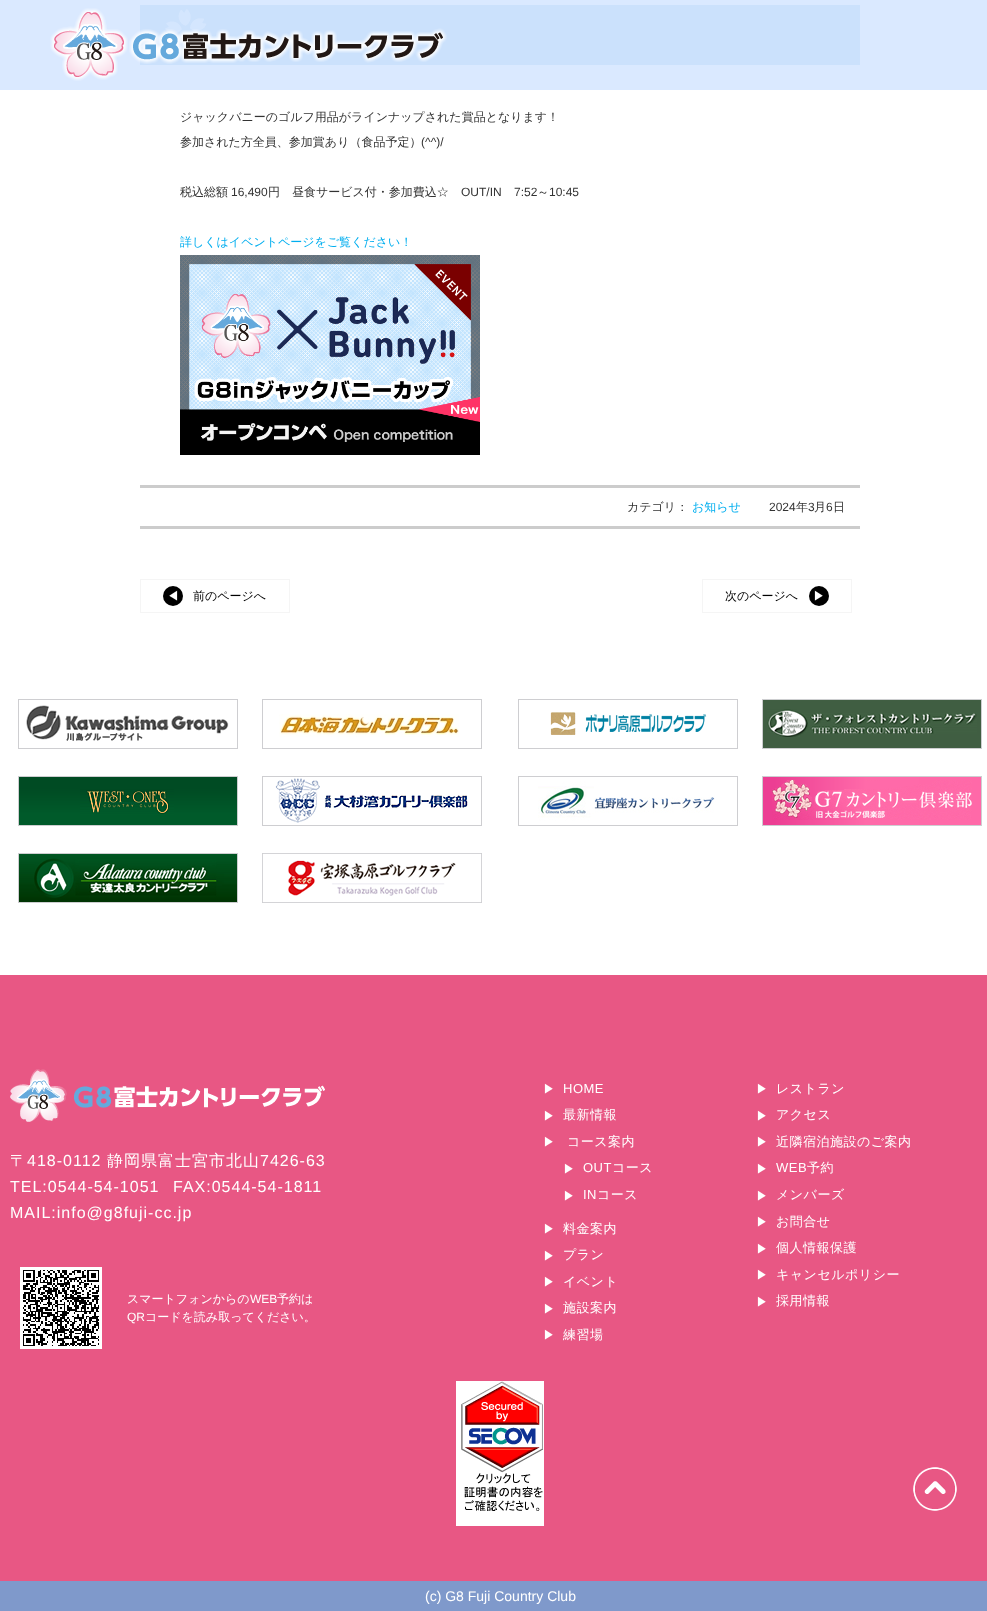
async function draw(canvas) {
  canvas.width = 987;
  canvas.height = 1611;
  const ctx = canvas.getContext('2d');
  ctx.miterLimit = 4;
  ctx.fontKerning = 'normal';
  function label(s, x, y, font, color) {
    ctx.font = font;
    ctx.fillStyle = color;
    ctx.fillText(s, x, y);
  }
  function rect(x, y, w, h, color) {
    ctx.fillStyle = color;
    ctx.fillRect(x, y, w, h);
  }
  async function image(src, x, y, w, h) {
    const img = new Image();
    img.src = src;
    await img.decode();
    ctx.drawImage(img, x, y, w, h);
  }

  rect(0, 0, 987, 1611, '#fff');
  rect(0, 0, 987, 90, '#dae9ff');
  rect(140, 5, 720, 60, '#cbe1fc');
  await image('assets/img2.png', 140, 9, 67, 52);
  await image('assets/img1.png', 50, 8, 397, 73);
  label('ジャックバニーのゴルフ用品がラインナップされた賞品となります！', 180, 121, '500 12px WenQuanYi Zen Hei', '#333');
  label('参加された方全員、参加賞あり（食品予定）', 180, 146, '500 12px WenQuanYi Zen Hei', '#333');
  label('(^^)/', 421, 146, '12px Liberation Sans', '#333');
  label('税込総額', 180, 196, '500 12px WenQuanYi Zen Hei', '#333');
  label('16,490', 231, 196, '12px Liberation Sans', '#333');
  label('円　昼食サービス付・参加費込☆', 268, 196, '500 12px WenQuanYi Zen Hei', '#333');
  label('OUT/IN', 461, 196, '12px Liberation Sans', '#333');
  label('7:52', 514, 196, '12px Liberation Sans', '#333');
  label('～', 537, 196, '500 12px WenQuanYi Zen Hei', '#333');
  label('10:45', 549, 196, '12px Liberation Sans', '#333');
  label('詳しくはイベントページをご覧ください！', 180, 246, '500 12px WenQuanYi Zen Hei', '#00aeef');
  await image('assets/img3.png', 180, 255, 300, 200);
  rect(140, 485, 720, 3, '#ccc');
  label('カテゴリ：', 627, 511, '500 12px WenQuanYi Zen Hei', '#333');
  label('お知らせ', 692, 511, '500 12px WenQuanYi Zen Hei', '#00aeef');
  label('2024', 769, 511, '12px Liberation Sans', '#333');
  label('年', 796, 511, '500 12px WenQuanYi Zen Hei', '#333');
  label('3', 808, 511, '12px Liberation Sans', '#333');
  label('月', 814, 511, '500 12px WenQuanYi Zen Hei', '#333');
  label('6', 826, 511, '12px Liberation Sans', '#333');
  label('日', 833, 511, '500 12px WenQuanYi Zen Hei', '#333');
  rect(140, 526, 720, 3, '#ccc');
  ctx.strokeStyle = '#f5f5f5';
  ctx.strokeRect(140.5, 579.5, 149, 33);
  ctx.fillStyle = '#000';
  ctx.beginPath();
  ctx.arc(173, 596, 10, 0, 2 * Math.PI);
  ctx.fill();
  label('◀', 167, 600, '500 12px WenQuanYi Zen Hei', '#fff');
  label('前のページへ', 193, 600, '500 12px WenQuanYi Zen Hei', '#000');
  ctx.strokeRect(702.5, 579.5, 149, 33);
  label('次のページへ', 725, 600, '500 12px WenQuanYi Zen Hei', '#000');
  ctx.beginPath();
  ctx.arc(819, 596, 10, 0, 2 * Math.PI);
  ctx.fill();
  label('▶', 813, 600, '500 12px WenQuanYi Zen Hei', '#fff');
  await image('assets/img4.png', 18, 699, 220, 50);
  await image('assets/img5.png', 262, 699, 220, 50);
  await image('assets/img6.png', 518, 699, 220, 50);
  await image('assets/img7.png', 762, 699, 220, 50);
  await image('assets/img8.png', 18, 776, 220, 50);
  await image('assets/img9.png', 262, 776, 220, 50);
  await image('assets/img10.png', 518, 776, 220, 50);
  await image('assets/img11.png', 762, 776, 220, 50);
  await image('assets/img12.png', 18, 853, 220, 50);
  await image('assets/img13.png', 262, 853, 220, 50);
  rect(0, 975, 987, 606, '#e85784');
  await image('assets/img14.png', 10, 1069, 315, 53);
  ctx.letterSpacing = '1px';
  label('〒', 10, 1166, '500 16px WenQuanYi Zen Hei', '#fff');
  label('418-0112', 27, 1166, '16px Liberation Sans', '#fff');
  label('静岡県富士宮市北山', 107, 1166, '500 16px WenQuanYi Zen Hei', '#fff');
  label('7426-63', 260, 1166, '16px Liberation Sans', '#fff');
  label('TEL:0544-54-1051', 10, 1192, '16px Liberation Sans', '#fff');
  label('FAX:0544-54-1811', 173, 1192, '16px Liberation Sans', '#fff');
  label('MAIL:info@g8fuji-cc.jp', 10, 1218, '16px Liberation Sans', '#fff');
  await image('assets/img15.png', 20, 1267, 82, 82);
  ctx.letterSpacing = '0px';
  label('スマートフォンからの', 127, 1303, '500 12px WenQuanYi Zen Hei', '#fff');
  label('WEB', 250, 1303, '12px Liberation Sans', '#fff');
  label('予約は', 277, 1303, '500 12px WenQuanYi Zen Hei', '#fff');
  label('QR', 127, 1321, '12px Liberation Sans', '#fff');
  label('コードを読み取ってください。', 145, 1321, '500 12px WenQuanYi Zen Hei', '#fff');
  ctx.letterSpacing = '0.5px';
  label('▶', 543, 1093, '500 12px WenQuanYi Zen Hei', '#fff');
  label('HOME', 563, 1093, '13px Liberation Sans', '#fff');
  label('▶', 543, 1120, '500 12px WenQuanYi Zen Hei', '#fff');
  label('最新情報', 563, 1119, '500 13px WenQuanYi Zen Hei', '#fff');
  label('▶', 543, 1146, '500 12px WenQuanYi Zen Hei', '#fff');
  label('コース案内', 567, 1146, '500 13px WenQuanYi Zen Hei', '#fff');
  label('▶', 563, 1173, '500 12px WenQuanYi Zen Hei', '#fff');
  label('OUT', 583, 1172, '13px Liberation Sans', '#fff');
  label('コース', 612, 1172, '500 13px WenQuanYi Zen Hei', '#fff');
  label('▶', 563, 1200, '500 12px WenQuanYi Zen Hei', '#fff');
  label('IN', 583, 1199, '13px Liberation Sans', '#fff');
  label('コース', 597, 1199, '500 13px WenQuanYi Zen Hei', '#fff');
  label('▶', 543, 1233, '500 12px WenQuanYi Zen Hei', '#fff');
  label('料金案内', 563, 1233, '500 13px WenQuanYi Zen Hei', '#fff');
  label('▶', 543, 1260, '500 12px WenQuanYi Zen Hei', '#fff');
  label('プラン', 563, 1259, '500 13px WenQuanYi Zen Hei', '#fff');
  label('▶', 543, 1286, '500 12px WenQuanYi Zen Hei', '#fff');
  label('イベント', 563, 1286, '500 13px WenQuanYi Zen Hei', '#fff');
  label('▶', 543, 1313, '500 12px WenQuanYi Zen Hei', '#fff');
  label('施設案内', 563, 1312, '500 13px WenQuanYi Zen Hei', '#fff');
  label('▶', 543, 1339, '500 12px WenQuanYi Zen Hei', '#fff');
  label('練習場', 563, 1339, '500 13px WenQuanYi Zen Hei', '#fff');
  label('▶', 756, 1093, '500 12px WenQuanYi Zen Hei', '#fff');
  label('レストラン', 776, 1093, '500 13px WenQuanYi Zen Hei', '#fff');
  label('▶', 756, 1120, '500 12px WenQuanYi Zen Hei', '#fff');
  label('アクセス', 776, 1119, '500 13px WenQuanYi Zen Hei', '#fff');
  label('▶', 756, 1146, '500 12px WenQuanYi Zen Hei', '#fff');
  label('近隣宿泊施設のご案内', 776, 1146, '500 13px WenQuanYi Zen Hei', '#fff');
  label('▶', 756, 1173, '500 12px WenQuanYi Zen Hei', '#fff');
  label('WEB', 776, 1172, '13px Liberation Sans', '#fff');
  label('予約', 807, 1172, '500 13px WenQuanYi Zen Hei', '#fff');
  label('▶', 756, 1200, '500 12px WenQuanYi Zen Hei', '#fff');
  label('メンバーズ', 776, 1199, '500 13px WenQuanYi Zen Hei', '#fff');
  label('▶', 756, 1226, '500 12px WenQuanYi Zen Hei', '#fff');
  label('お問合せ', 776, 1226, '500 13px WenQuanYi Zen Hei', '#fff');
  label('▶', 756, 1253, '500 12px WenQuanYi Zen Hei', '#fff');
  label('個人情報保護', 776, 1252, '500 13px WenQuanYi Zen Hei', '#fff');
  label('▶', 756, 1279, '500 12px WenQuanYi Zen Hei', '#fff');
  label('キャンセルポリシー', 776, 1279, '500 13px WenQuanYi Zen Hei', '#fff');
  label('▶', 756, 1306, '500 12px WenQuanYi Zen Hei', '#fff');
  label('採用情報', 776, 1305, '500 13px WenQuanYi Zen Hei', '#fff');
  await image('assets/img16.png', 456, 1381, 88, 145);
  rect(0, 1581, 987, 30, '#7f99cb');
  ctx.letterSpacing = '0px';
  label('(c) G8 Fuji Country Club', 425, 1601, '14px Liberation Sans', '#fff');
  await image('assets/img17.png', 913, 1467, 44, 44);
}

draw(document.querySelector('canvas'));
